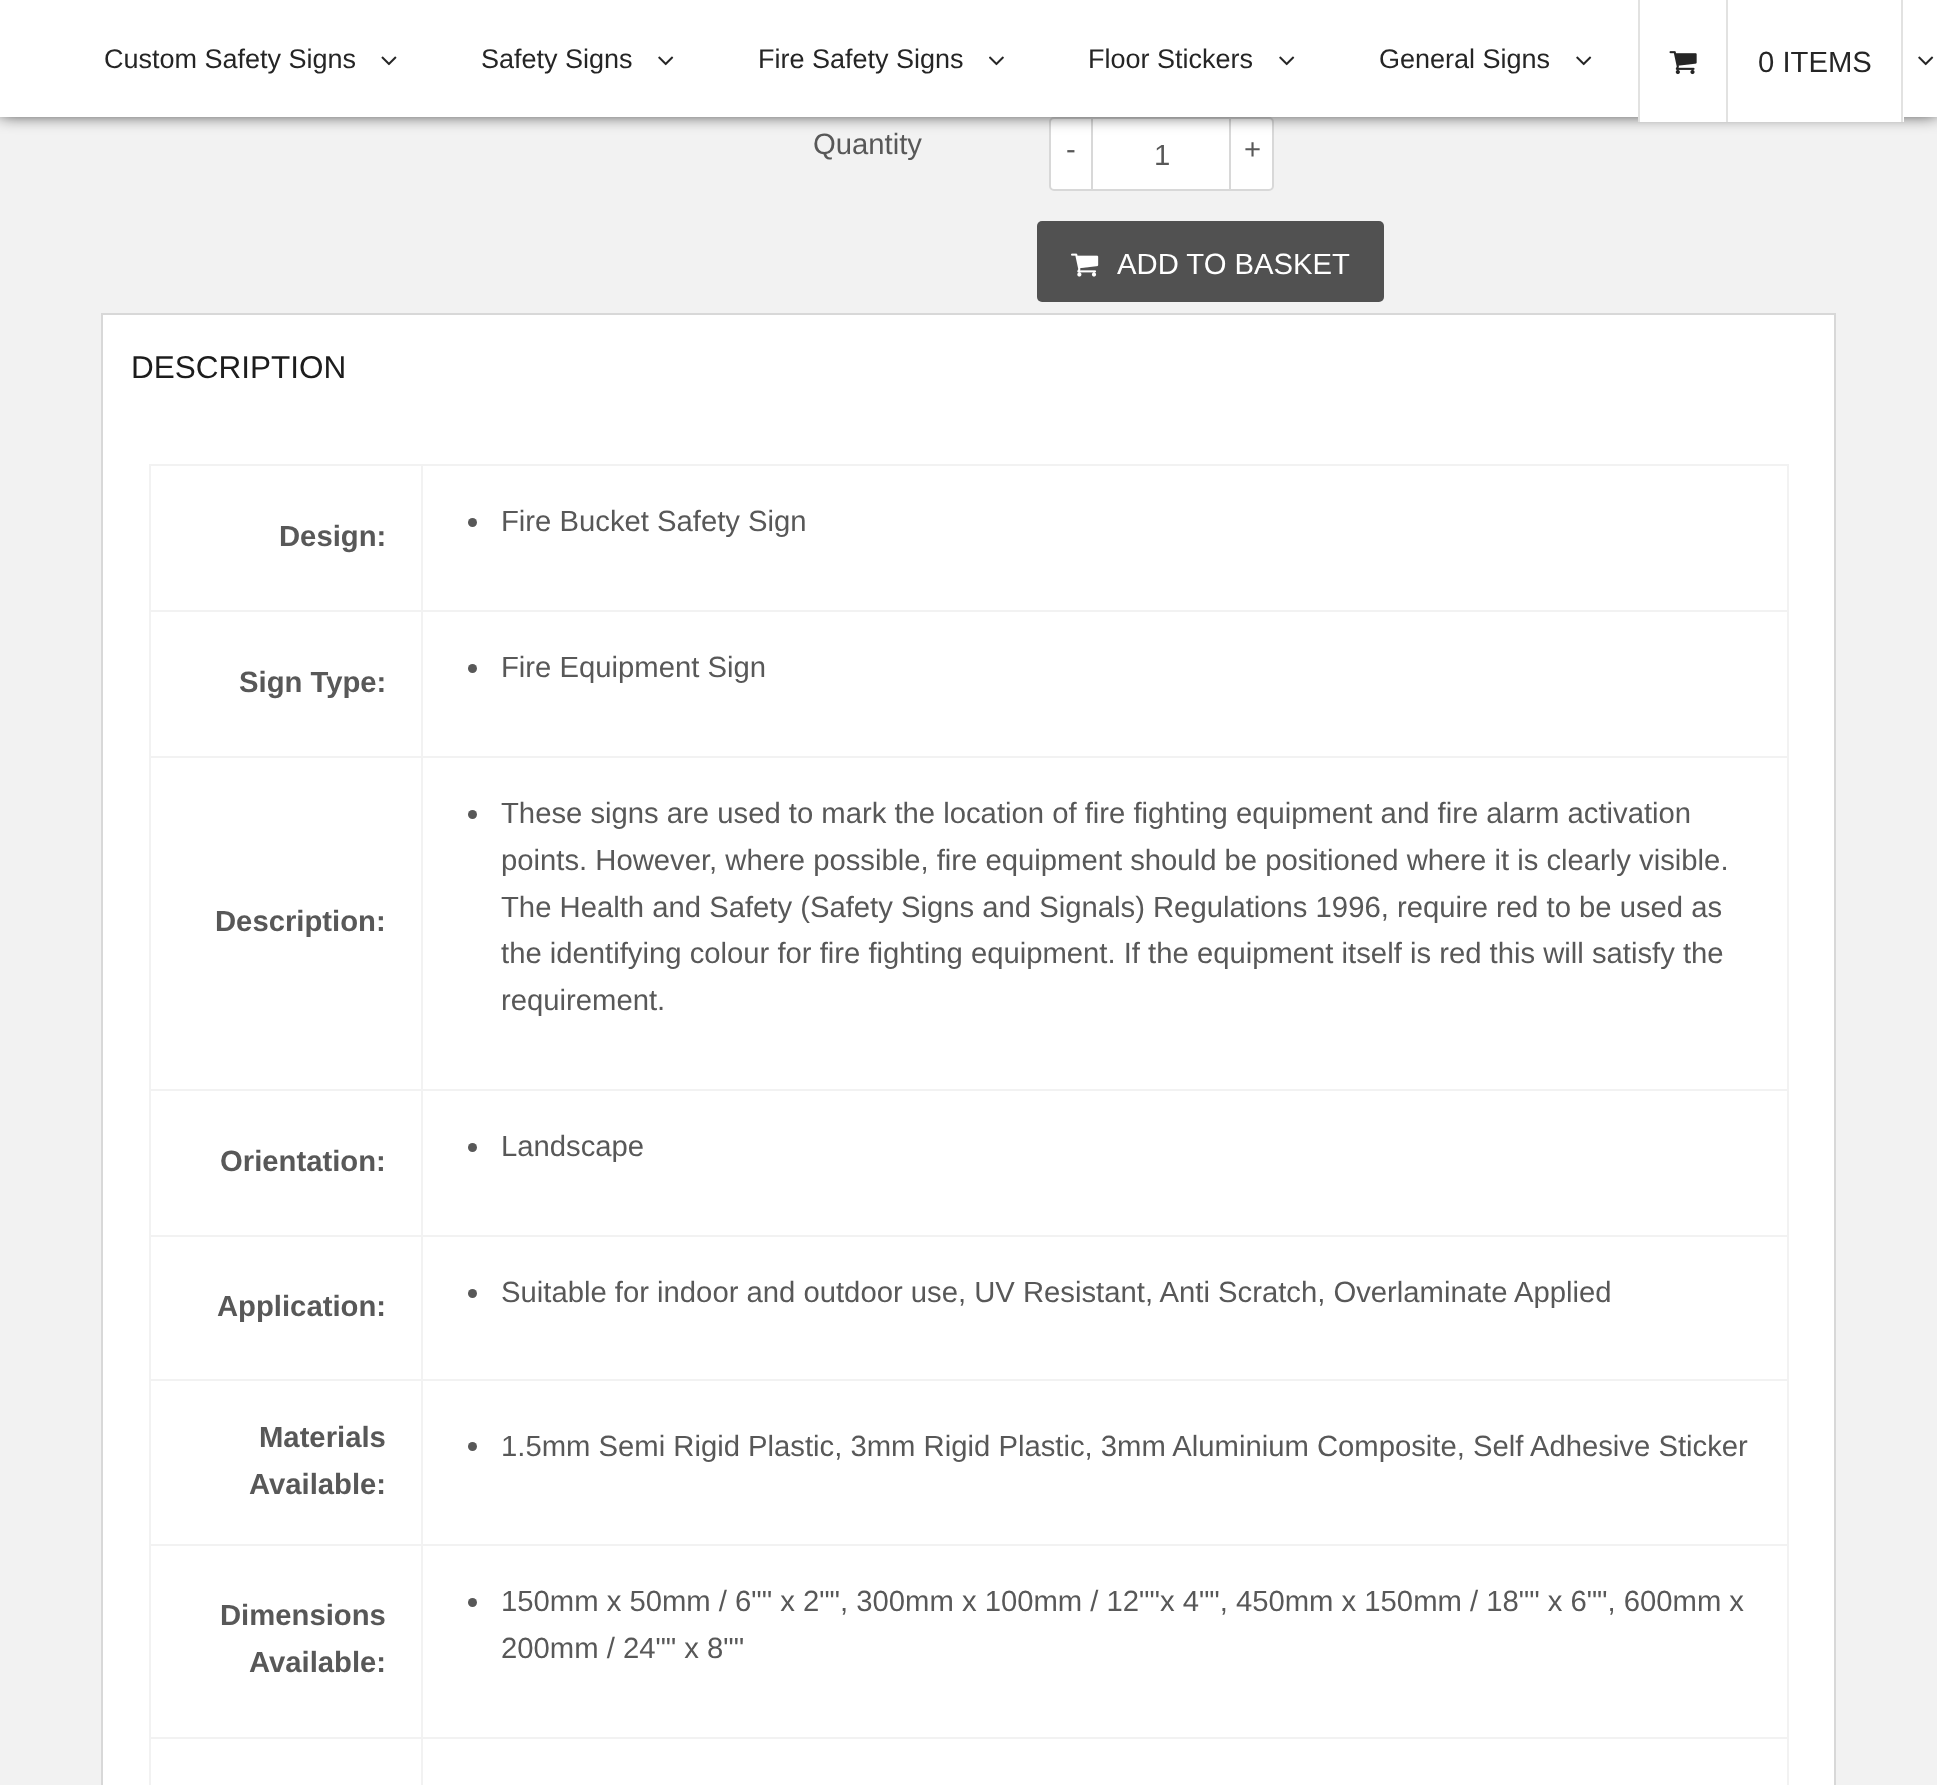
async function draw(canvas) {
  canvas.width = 1937;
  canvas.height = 1785;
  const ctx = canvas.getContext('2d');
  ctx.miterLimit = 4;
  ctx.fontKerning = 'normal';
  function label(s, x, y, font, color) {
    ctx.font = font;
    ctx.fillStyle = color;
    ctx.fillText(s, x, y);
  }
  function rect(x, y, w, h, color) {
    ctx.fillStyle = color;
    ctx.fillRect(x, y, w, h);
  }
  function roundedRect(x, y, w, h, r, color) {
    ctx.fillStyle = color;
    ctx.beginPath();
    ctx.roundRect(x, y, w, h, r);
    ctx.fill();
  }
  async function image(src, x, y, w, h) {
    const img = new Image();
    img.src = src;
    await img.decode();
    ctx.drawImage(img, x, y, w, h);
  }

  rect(0, 0, 1937, 1785, '#f2f2f2');
  ctx.fillStyle = '#fff';
  ctx.beginPath();
  ctx.roundRect(1050, 118, 223, 72, 4);
  ctx.fill();
  ctx.strokeStyle = '#d8d8d8';
  ctx.lineWidth = 2;
  ctx.stroke();
  rect(1091, 117, 2, 74, '#d8d8d8');
  rect(1229, 117, 2, 74, '#d8d8d8');
  ctx.fillStyle = '#000';
  ctx.filter = 'blur(9px)';
  ctx.beginPath();
  ctx.rect(0, -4, 1937, 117);
  ctx.fill();
  ctx.filter = 'none';
  rect(0, 0, 1937, 117, '#fff');
  label('Custom Safety Signs', 104, 68, '27px Liberation Sans', '#252525');
  await image('assets/img1.png', 381, 56, 16, 10);
  label('Safety Signs', 481, 68, '27px Liberation Sans', '#252525');
  await image('assets/img2.png', 658, 56, 16, 10);
  label('Fire Safety Signs', 758, 68, '27px Liberation Sans', '#252525');
  await image('assets/img3.png', 989, 56, 15, 10);
  label('Floor Stickers', 1088, 68, '27px Liberation Sans', '#252525');
  await image('assets/img2.png', 1279, 56, 16, 10);
  label('General Signs', 1379, 68, '27px Liberation Sans', '#252525');
  await image('assets/img2.png', 1576, 56, 16, 10);
  await image('assets/img2.png', 1918, 56, 16, 10);
  rect(1640, 117, 264, 5, '#fff');
  rect(1901, 0, 2, 122, '#e2e2e1');
  rect(1638, 0, 2, 122, '#e2e2e1');
  await image('assets/img4.png', 1669, 51, 28, 24);
  rect(1726, 0, 2, 122, '#e2e2e1');
  label('0 ITEMS', 1758, 72, '29.25px Liberation Sans', '#252525');
  label('Quantity', 813, 154, '29.25px Liberation Sans', '#585858');
  label('-', 1066, 159, '29.25px Liberation Sans', '#585858');
  label('1', 1154, 165, '29.25px Liberation Sans', '#585858');
  label('+', 1244, 159, '29.25px Liberation Sans', '#585858');
  roundedRect(1037, 221, 347, 81, 5, '#515151');
  await image('assets/img5.png', 1071, 253, 28, 24);
  label('ADD TO BASKET', 1117, 274, '29.25px Liberation Sans', '#fff');
  rect(101, 313, 1735, 2, '#d8d8d8');
  rect(103, 315, 1731, 1470, '#fff');
  rect(1834, 315, 2, 1470, '#d8d8d8');
  rect(101, 315, 2, 1470, '#d8d8d8');
  label('DESCRIPTION', 131, 378, '31.5px Liberation Sans', '#1c1c1c');
  rect(421, 464, 1368, 2, '#f2f2f2');
  rect(421, 610, 1368, 2, '#f2f2f2');
  rect(421, 756, 1368, 2, '#f2f2f2');
  rect(421, 1089, 1368, 2, '#f2f2f2');
  rect(421, 1235, 1368, 2, '#f2f2f2');
  rect(421, 1379, 1368, 2, '#f2f2f2');
  rect(421, 1544, 1368, 2, '#f2f2f2');
  rect(421, 1737, 1368, 2, '#f2f2f2');
  rect(421, 1737, 2, 48, '#f2f2f2');
  rect(149, 1737, 274, 2, '#f2f2f2');
  rect(421, 1544, 2, 195, '#f2f2f2');
  rect(149, 1544, 274, 2, '#f2f2f2');
  rect(421, 1379, 2, 167, '#f2f2f2');
  rect(149, 1379, 274, 2, '#f2f2f2');
  rect(421, 1235, 2, 147, '#f2f2f2');
  rect(149, 1235, 274, 2, '#f2f2f2');
  rect(421, 1089, 2, 149, '#f2f2f2');
  rect(149, 1089, 274, 2, '#f2f2f2');
  rect(421, 756, 2, 335, '#f2f2f2');
  rect(149, 756, 274, 2, '#f2f2f2');
  rect(421, 610, 2, 148, '#f2f2f2');
  rect(149, 610, 274, 2, '#f2f2f2');
  rect(421, 464, 2, 148, '#f2f2f2');
  rect(149, 464, 274, 2, '#f2f2f2');
  rect(149, 1737, 2, 48, '#f2f2f2');
  rect(149, 1544, 2, 195, '#f2f2f2');
  rect(149, 1379, 2, 167, '#f2f2f2');
  rect(149, 1235, 2, 147, '#f2f2f2');
  rect(149, 1089, 2, 149, '#f2f2f2');
  rect(149, 756, 2, 335, '#f2f2f2');
  rect(149, 610, 2, 148, '#f2f2f2');
  rect(149, 464, 2, 148, '#f2f2f2');
  label('Design:', 279, 546, 'bold 29.25px Liberation Sans', '#585858');
  rect(1787, 1737, 2, 48, '#f2f2f2');
  rect(1787, 1544, 2, 195, '#f2f2f2');
  rect(1787, 1379, 2, 167, '#f2f2f2');
  rect(1787, 1235, 2, 147, '#f2f2f2');
  rect(1787, 1089, 2, 149, '#f2f2f2');
  rect(1787, 756, 2, 335, '#f2f2f2');
  rect(1787, 610, 2, 148, '#f2f2f2');
  rect(1787, 464, 2, 148, '#f2f2f2');
  ctx.fillStyle = '#585858';
  ctx.beginPath();
  ctx.arc(472.5, 522.5, 4.5, 0, 2 * Math.PI);
  ctx.fill();
  label('Fire Bucket Safety Sign', 501, 531, '29.25px Liberation Sans', '#585858');
  label('Sign Type:', 239, 692, 'bold 29.25px Liberation Sans', '#585858');
  ctx.beginPath();
  ctx.arc(472.5, 668.5, 4.5, 0, 2 * Math.PI);
  ctx.fill();
  label('Fire Equipment Sign', 501, 677, '29.25px Liberation Sans', '#585858');
  label('Description:', 215, 931, 'bold 29.25px Liberation Sans', '#585858');
  ctx.beginPath();
  ctx.arc(472.5, 814.5, 4.5, 0, 2 * Math.PI);
  ctx.fill();
  label('These signs are used to mark the location of fire fighting equipment and fire alarm activation', 501, 823, '29.25px Liberation Sans', '#585858');
  label('points. However, where possible, fire equipment should be positioned where it is clearly visible.', 501, 870, '29.25px Liberation Sans', '#585858');
  label('The Health and Safety (Safety Signs and Signals) Regulations 1996, require red to be used as', 501, 917, '29.25px Liberation Sans', '#585858');
  label('the identifying colour for fire fighting equipment. If the equipment itself is red this will satisfy the', 501, 963, '29.25px Liberation Sans', '#585858');
  label('requirement.', 501, 1010, '29.25px Liberation Sans', '#585858');
  label('Orientation:', 220, 1171, 'bold 29.25px Liberation Sans', '#585858');
  ctx.beginPath();
  ctx.arc(472.5, 1147.5, 4.5, 0, 2 * Math.PI);
  ctx.fill();
  label('Landscape', 501, 1156, '29.25px Liberation Sans', '#585858');
  label('Application:', 217, 1316, 'bold 29.25px Liberation Sans', '#585858');
  ctx.beginPath();
  ctx.arc(472.5, 1293.5, 4.5, 0, 2 * Math.PI);
  ctx.fill();
  label('Suitable for indoor and outdoor use, UV Resistant, Anti Scratch, Overlaminate Applied', 501, 1302, '29.25px Liberation Sans', '#585858');
  label('Materials', 259, 1447, 'bold 29.25px Liberation Sans', '#585858');
  label('Available:', 249, 1494, 'bold 29.25px Liberation Sans', '#585858');
  ctx.beginPath();
  ctx.arc(472.5, 1446.5, 4.5, 0, 2 * Math.PI);
  ctx.fill();
  label('1.5mm Semi Rigid Plastic, 3mm Rigid Plastic, 3mm Aluminium Composite, Self Adhesive Sticker', 501, 1456, '29.25px Liberation Sans', '#585858');
  label('Dimensions', 220, 1625, 'bold 29.25px Liberation Sans', '#585858');
  label('Available:', 249, 1672, 'bold 29.25px Liberation Sans', '#585858');
  ctx.beginPath();
  ctx.arc(472.5, 1602.5, 4.5, 0, 2 * Math.PI);
  ctx.fill();
  label('150mm x 50mm / 6"" x 2"", 300mm x 100mm / 12""x 4"", 450mm x 150mm / 18"" x 6"", 600mm x', 501, 1611, '29.25px Liberation Sans', '#585858');
  label('200mm / 24"" x 8""', 501, 1658, '29.25px Liberation Sans', '#585858');
}

draw(document.querySelector('canvas'));
